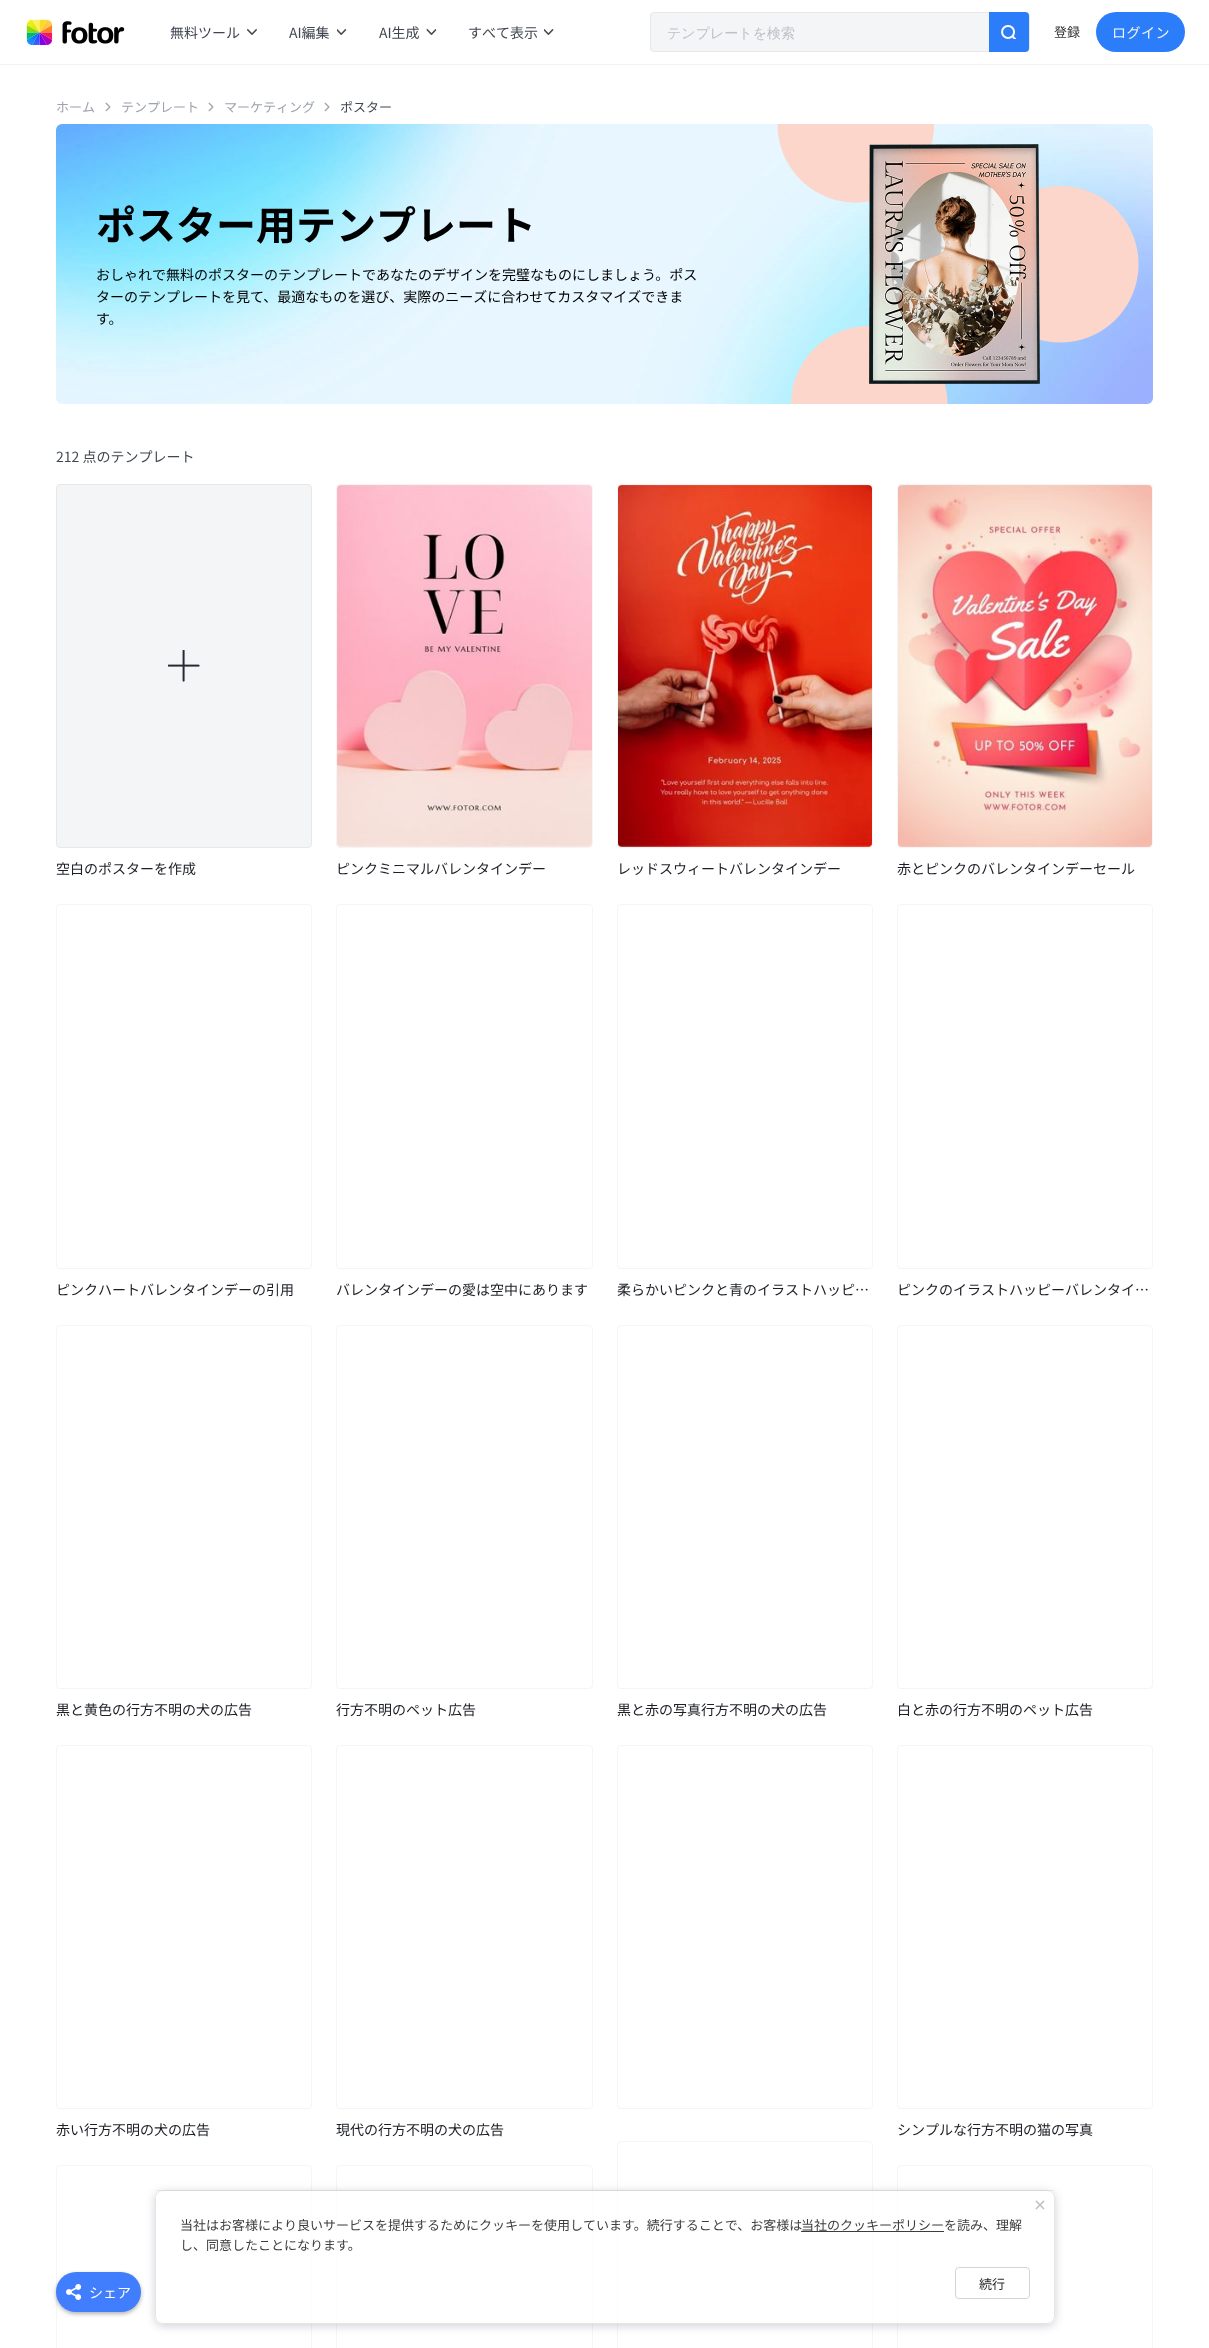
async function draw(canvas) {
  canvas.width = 1209;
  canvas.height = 2348;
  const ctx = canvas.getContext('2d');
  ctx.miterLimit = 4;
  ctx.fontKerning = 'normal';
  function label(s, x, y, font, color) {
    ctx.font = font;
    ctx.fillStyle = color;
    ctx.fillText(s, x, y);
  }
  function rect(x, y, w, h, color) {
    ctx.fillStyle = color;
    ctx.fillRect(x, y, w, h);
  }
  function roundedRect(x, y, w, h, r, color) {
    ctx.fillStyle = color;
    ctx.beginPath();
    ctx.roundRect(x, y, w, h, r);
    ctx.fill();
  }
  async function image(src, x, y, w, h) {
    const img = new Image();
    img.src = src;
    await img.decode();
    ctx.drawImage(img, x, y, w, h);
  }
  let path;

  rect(0, 0, 1209, 2348, '#fff');
  rect(0, 64, 1209, 1, '#f2f2f2');
  await image('assets/img1.png', 26, 19, 99, 26);
  label('無料ツール', 170, 38, '14px Noto Sans JP', '#414751');
  await image('assets/img2.png', 247, 29, 10, 6);
  label('AI編集', 289, 38, '14px Noto Sans JP', '#414751');
  await image('assets/img3.png', 337, 29, 10, 6);
  label('AI生成', 379, 38, '14px Noto Sans JP', '#414751');
  await image('assets/img4.png', 426, 29, 10, 6);
  label('すべて表示', 468, 38, '14px Noto Sans JP', '#414751');
  await image('assets/img5.png', 544, 29, 10, 6);
  ctx.fillStyle = '#f4f5f6';
  ctx.beginPath();
  ctx.roundRect(650.5, 12.5, 379, 39, 3.5);
  ctx.fill();
  ctx.strokeStyle = '#e7e8e9';
  ctx.stroke();
  label('テンプレートを検索', 667, 38, '500 14px WenQuanYi Zen Hei', '#bec0c8');
  ctx.fillStyle = '#2c7dfa';
  ctx.beginPath();
  ctx.roundRect(989, 12, 40, 40, [0, 4, 4, 0]);
  ctx.fill();
  await image('assets/img6.png', 1001, 25, 15, 14);
  label('登録', 1054, 37, '13px Noto Sans JP', '#343434');
  roundedRect(1096, 12, 89, 40, 20, '#2c7dfa');
  ctx.letterSpacing = '0.5px';
  label('ログイン', 1112, 38, '14px Noto Sans JP', '#f4f5f6');
  ctx.letterSpacing = '0px';
  label('ホーム', 56, 112, '13px Noto Sans JP', '#9da2ad');
  await image('assets/img7.png', 105, 102, 6, 10);
  label('テンプレート', 121, 112, '13px Noto Sans JP', '#9da2ad');
  await image('assets/img7.png', 208, 102, 6, 10);
  label('マーケティング', 224, 112, '13px Noto Sans JP', '#9da2ad');
  await image('assets/img7.png', 324, 102, 6, 10);
  label('ポスター', 340, 112, '13px Noto Sans JP', '#414751');
  await image('assets/img8.png', 56, 124, 1097, 280);
  label('ポスター用テンプレート', 96, 240, 'bold 40px Noto Sans JP', '#000');
  await image('assets/img9.png', 777, 124, 362, 280);
  label('おしゃれで無料のポスターのテンプレートであなたのデザインを完璧なものにしましょう。ポス', 96, 280, '14px Noto Sans JP', '#000');
  label('ターのテンプレートを見て、最適なものを選び、実際のニーズに合わせてカスタマイズできま', 96, 302, '14px Noto Sans JP', '#000');
  label('す。', 96, 324, '14px Noto Sans JP', '#000');
  label('212 点のテンプレート', 56, 462, '14px Noto Sans JP', '#414751');
  ctx.fillStyle = '#f4f5f6';
  ctx.beginPath();
  ctx.roundRect(56.5, 484.5, 255, 363, 3.5);
  ctx.fill();
  ctx.stroke();
  await image('assets/img10.png', 168, 650, 32, 32);
  label('空白のポスターを作成', 56, 874, '14px Noto Sans JP', '#1b1e24');
  ctx.beginPath();
  ctx.roundRect(336.5, 484.5, 256, 363, 3.5);
  ctx.strokeStyle = '#f4f5f6';
  ctx.stroke();
  await image('assets/img11.png', 337, 485, 255, 362);
  label('ピンクミニマルバレンタインデー', 336, 874, '14px Noto Sans JP', '#1b1e24');
  ctx.beginPath();
  ctx.roundRect(617.5, 484.5, 255, 363, 3.5);
  ctx.stroke();
  await image('assets/img12.png', 618, 485, 254, 362);
  label('レッドスウィートバレンタインデー', 617, 874, '14px Noto Sans JP', '#1b1e24');
  ctx.beginPath();
  ctx.roundRect(897.5, 484.5, 255, 363, 3.5);
  ctx.stroke();
  await image('assets/img13.png', 898, 485, 254, 362);
  label('赤とピンクのバレンタインデーセール', 897, 874, '14px Noto Sans JP', '#1b1e24');
  ctx.beginPath();
  ctx.roundRect(56.5, 904.5, 255, 364, 3.5);
  ctx.stroke();
  label('ピンクハートバレンタインデーの引用', 56, 1295, '14px Noto Sans JP', '#1b1e24');
  ctx.beginPath();
  ctx.roundRect(336.5, 904.5, 256, 364, 3.5);
  ctx.stroke();
  label('バレンタインデーの愛は空中にあります', 336, 1295, '14px Noto Sans JP', '#1b1e24');
  ctx.beginPath();
  ctx.roundRect(617.5, 904.5, 255, 364, 3.5);
  ctx.stroke();
  label('柔らかいピンクと青のイラストハッピ…', 617, 1295, '14px Noto Sans JP', '#1b1e24');
  ctx.beginPath();
  ctx.roundRect(897.5, 904.5, 255, 364, 3.5);
  ctx.stroke();
  label('ピンクのイラストハッピーバレンタイ…', 897, 1295, '14px Noto Sans JP', '#1b1e24');
  ctx.beginPath();
  ctx.roundRect(56.5, 1325.5, 255, 363, 3.5);
  ctx.stroke();
  label('黒と黄色の行方不明の犬の広告', 56, 1715, '14px Noto Sans JP', '#1b1e24');
  ctx.beginPath();
  ctx.roundRect(336.5, 1325.5, 256, 363, 3.5);
  ctx.stroke();
  label('行方不明のペット広告', 336, 1715, '14px Noto Sans JP', '#1b1e24');
  ctx.beginPath();
  ctx.roundRect(617.5, 1325.5, 255, 363, 3.5);
  ctx.stroke();
  label('黒と赤の写真行方不明の犬の広告', 617, 1715, '14px Noto Sans JP', '#1b1e24');
  ctx.beginPath();
  ctx.roundRect(897.5, 1325.5, 255, 363, 3.5);
  ctx.stroke();
  label('白と赤の行方不明のペット広告', 897, 1715, '14px Noto Sans JP', '#1b1e24');
  ctx.beginPath();
  ctx.roundRect(617.5, 1745.5, 255, 363, 3.5);
  ctx.stroke();
  ctx.beginPath();
  ctx.roundRect(56.5, 1745.5, 255, 363, 3.5);
  ctx.stroke();
  label('赤い行方不明の犬の広告', 56, 2135, '14px Noto Sans JP', '#1b1e24');
  ctx.beginPath();
  ctx.roundRect(336.5, 1745.5, 256, 363, 3.5);
  ctx.stroke();
  label('現代の行方不明の犬の広告', 336, 2135, '14px Noto Sans JP', '#1b1e24');
  ctx.beginPath();
  ctx.roundRect(897.5, 1745.5, 255, 363, 3.5);
  ctx.stroke();
  label('シンプルな行方不明の猫の写真', 897, 2135, '14px Noto Sans JP', '#1b1e24');
  ctx.beginPath();
  ctx.roundRect(56.5, 2165.5, 255, 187, 3.5);
  ctx.stroke();
  ctx.beginPath();
  ctx.roundRect(336.5, 2165.5, 256, 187, 3.5);
  ctx.stroke();
  ctx.beginPath();
  ctx.roundRect(617.5, 2141.5, 255, 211, 3.5);
  ctx.stroke();
  ctx.beginPath();
  ctx.roundRect(897.5, 2165.5, 255, 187, 3.5);
  ctx.stroke();
  ctx.fillStyle = '#0000004d';
  ctx.filter = 'blur(2px)';
  ctx.beginPath();
  ctx.roundRect(56, 2274, 85, 40, 20);
  ctx.fill();
  ctx.filter = 'none';
  roundedRect(56, 2272, 85, 40, 20, '#407efe');
  ctx.save();
  path = new Path2D('M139 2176H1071V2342H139ZM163 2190H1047C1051.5 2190 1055 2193.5 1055 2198V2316C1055 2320.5 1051.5 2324 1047 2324H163C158.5 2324 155 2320.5 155 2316V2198C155 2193.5 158.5 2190 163 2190Z');
  ctx.clip(path, 'evenodd');
  ctx.fillStyle = '#16174d33';
  ctx.filter = 'blur(5px)';
  ctx.beginPath();
  ctx.roundRect(155, 2192, 900, 134, 8);
  ctx.fill();
  ctx.filter = 'none';
  ctx.restore();
  roundedRect(155, 2190, 900, 134, 8, '#ffffffcc');
  ctx.beginPath();
  ctx.roundRect(155.5, 2190.5, 899, 133, 7.5);
  ctx.strokeStyle = '#0000001a';
  ctx.stroke();
  rect(156, 2190, 898, 1, '#0000000d');
  await image('assets/img14.png', 1035, 2200, 10, 10);
  label('当社はお客様により良いサービスを提供するためにクッキーを使用しています。続行することで、お客様は', 180, 2230, '13px Noto Sans JP', '#3d3d3d');
  rect(801, 2231, 143, 1, '#3d3d3d');
  label('当社のクッキーポリシーを読み、理解', 801, 2230, '13px Noto Sans JP', '#3d3d3d');
  label('し、同意したことになります。', 180, 2250, '13px Noto Sans JP', '#3d3d3d');
  ctx.beginPath();
  ctx.roundRect(955.5, 2267.5, 74, 31, 3.5);
  ctx.strokeStyle = '#d5d5d5';
  ctx.stroke();
  label('続行', 979, 2289, '13px Noto Sans JP', '#2b2b2b');
  await image('assets/img15.png', 66, 2284, 15, 16);
  label('シェア', 89, 2298, '14px Noto Sans JP', '#fff');
}

draw(document.querySelector('canvas'));
